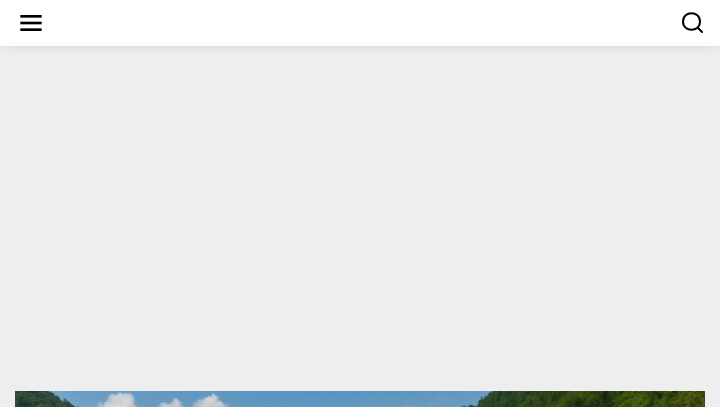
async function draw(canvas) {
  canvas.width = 720;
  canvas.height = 407;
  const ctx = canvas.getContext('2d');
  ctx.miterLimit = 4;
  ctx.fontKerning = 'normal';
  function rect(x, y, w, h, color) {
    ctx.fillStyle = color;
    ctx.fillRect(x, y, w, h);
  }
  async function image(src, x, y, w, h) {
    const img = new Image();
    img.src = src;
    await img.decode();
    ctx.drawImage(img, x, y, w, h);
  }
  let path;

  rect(0, 0, 720, 407, '#eee');
  ctx.fillStyle = '#0000001a';
  ctx.filter = 'blur(5px)';
  ctx.beginPath();
  ctx.rect(0, 0, 720, 46);
  ctx.fill();
  ctx.filter = 'none';
  rect(0, 0, 720, 46, '#fff');
  await image('assets/img1.png', 20, 15, 22, 16);
  path = new Path2D('M702 32L697.5 27.5M700 21.5C700 32.5 683 32.5 683 21.5C683 10.5 700 10.5 700 21.5Z');
  ctx.strokeStyle = '#000';
  ctx.lineWidth = 2;
  ctx.lineCap = 'round';
  ctx.stroke(path);
  await image('assets/img2.png', 15, 391, 690, 16);
}

draw(document.querySelector('canvas'));
